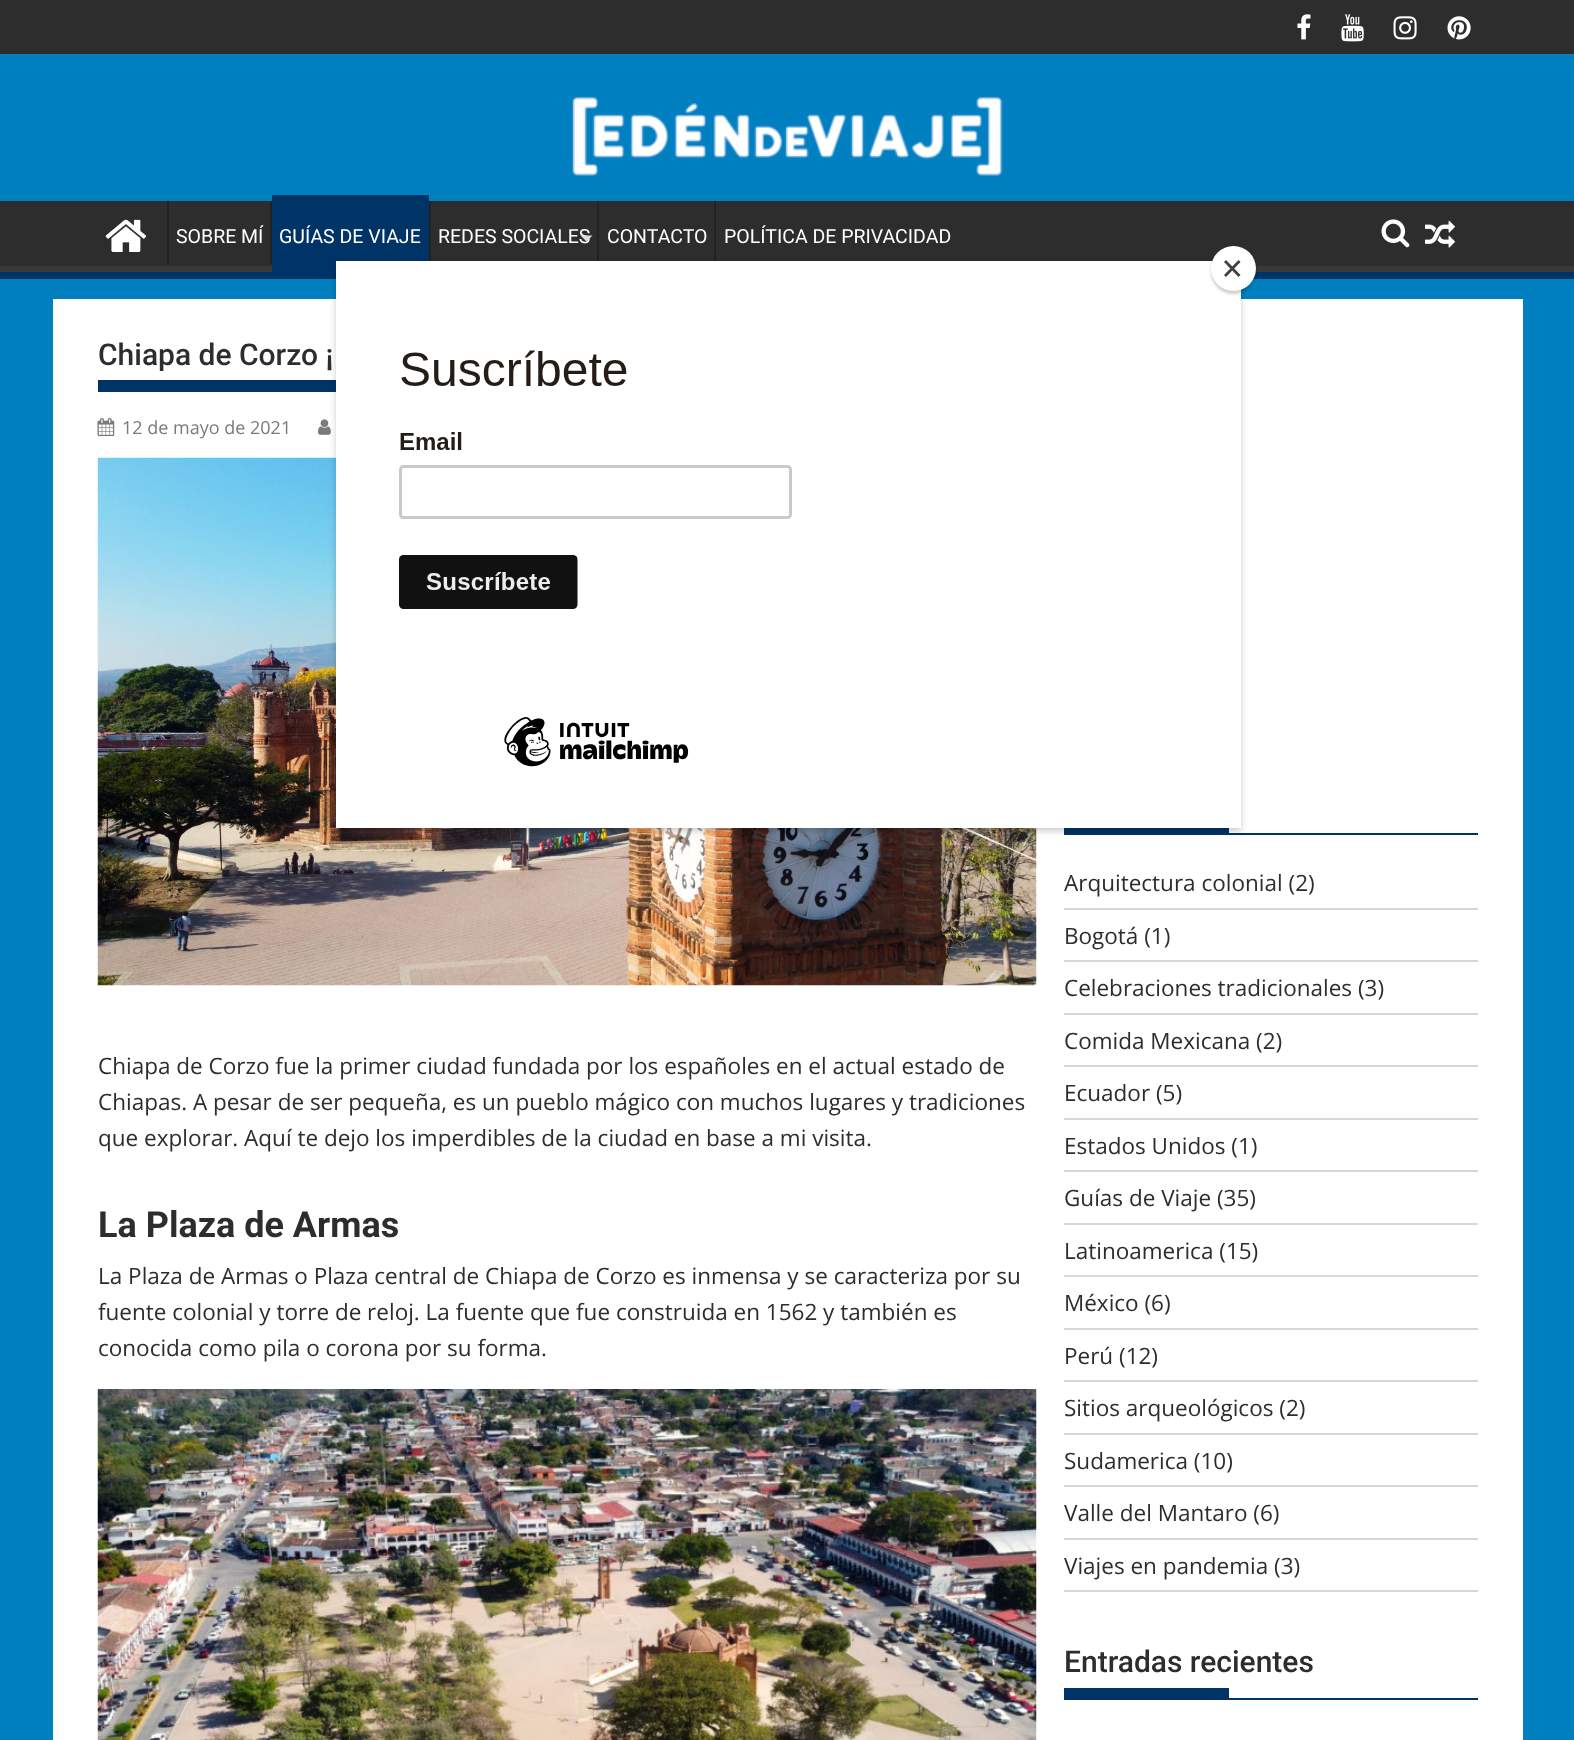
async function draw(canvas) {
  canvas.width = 1574;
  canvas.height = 1740;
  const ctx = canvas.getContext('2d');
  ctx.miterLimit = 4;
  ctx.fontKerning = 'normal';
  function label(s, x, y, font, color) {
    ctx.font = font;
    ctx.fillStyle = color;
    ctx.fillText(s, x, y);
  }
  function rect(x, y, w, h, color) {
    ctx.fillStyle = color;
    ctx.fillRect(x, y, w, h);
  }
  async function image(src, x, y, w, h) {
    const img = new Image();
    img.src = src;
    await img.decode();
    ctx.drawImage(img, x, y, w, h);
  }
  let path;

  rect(0, 0, 1574, 1740, '#0080c0');
  rect(0, 0, 1574, 54, '#2d2d2d');
  await image('assets/img1.png', 1297, 14, 14, 26);
  await image('assets/img2.png', 1341, 14, 23, 28);
  await image('assets/img3.png', 1393, 16, 24, 24);
  await image('assets/img4.png', 1447, 16, 24, 24);
  await image('assets/img5.png', 571, 96, 432, 80);
  rect(0, 201, 1574, 65, '#2d2d2d');
  ctx.save();
  ctx.beginPath();
  ctx.rect(0, 201, 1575, 71);
  ctx.clip();
  ctx.fillStyle = '#393939';
  path = new Path2D('M-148 52H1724V420H-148ZM-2 192H1574C1574 192 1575 193 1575 194V264C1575 265 1574 266 1574 266H-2C-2 266-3 265-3 264V194C-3 193-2 192-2 192Z');
  ctx.fill(path, 'evenodd');
  ctx.restore();
  rect(0, 272, 1574, 7, '#036');
  await image('assets/img6.png', 105, 219, 42, 33);
  rect(167, 201, 2, 63, '#222');
  label('SOBRE MÍ', 176, 243, '19.5px Roboto', '#fff');
  rect(270, 201, 2, 63, '#222');
  rect(272, 195, 157, 77, '#036');
  label('GUÍAS DE VIAJE', 279, 243, '19.5px Roboto', '#fff');
  rect(429, 201, 2, 63, '#222');
  label('REDES SOCIALES', 438, 243, '19.5px Roboto', '#fff');
  ctx.fillStyle = '#ddd';
  path = new Path2D('M580.5 235.5H592.5L586.5 241.5Z');
  ctx.fill(path);
  rect(597, 201, 2, 63, '#222');
  label('CONTACTO', 607, 243, '19.5px Roboto', '#fff');
  rect(714, 201, 2, 63, '#222');
  label('POLÍTICA DE PRIVACIDAD', 724, 243, '19.5px Roboto', '#fff');
  await image('assets/img7.png', 1381, 219, 29, 29);
  await image('assets/img8.png', 1425, 220, 30, 28);
  rect(53, 299, 1470, 1441, '#fff');
  rect(98, 380, 238, 12, '#036');
  label('Chiapa de Corzo ¡', 98, 365, '500 30px Roboto', '#2d2d2d');
  await image('assets/img9.png', 97, 418, 18, 19);
  label('12 de mayo de 2021', 122, 434, '18px Open Sans', '#7a7a7a');
  await image('assets/img10.png', 318, 419, 13, 16);
  await image('assets/img11.png', 97, 457, 940, 529);
  label('Chiapa de Corzo fue la primer ciudad fundada por los españoles en el actual estado de', 98, 1074, '22.5px Open Sans', '#2d2d2d');
  label('Chiapas. A pesar de ser pequeña, es un pueblo mágico con muchos lugares y tradiciones', 98, 1110, '22.5px Open Sans', '#2d2d2d');
  label('que explorar. Aquí te dejo los imperdibles de la ciudad en base a mi visita.', 98, 1146, '22.5px Open Sans', '#2d2d2d');
  label('La Plaza de Armas', 98, 1237, 'bold 36px Roboto', '#2d2d2d');
  label('La Plaza de Armas o Plaza central de Chiapa de Corzo es inmensa y se caracteriza por su', 98, 1284, '22.5px Open Sans', '#2d2d2d');
  label('fuente colonial y torre de reloj. La fuente que fue construida en 1562 y también es', 98, 1320, '22.5px Open Sans', '#2d2d2d');
  label('conocida como pila o corona por su forma.', 98, 1356, '22.5px Open Sans', '#2d2d2d');
  await image('assets/img12.png', 97, 1389, 940, 351);
  rect(1064, 833, 414, 2, '#036');
  rect(1064, 828, 165, 5, '#036');
  rect(1064, 908, 414, 2, '#d7d7d7');
  label('Arquitectura colonial (2)', 1064, 891, '22.5px Open Sans', '#2d2d2d');
  rect(1064, 960, 414, 2, '#d7d7d7');
  label('Bogotá (1)', 1064, 944, '22.5px Open Sans', '#2d2d2d');
  rect(1064, 1013, 414, 2, '#d7d7d7');
  label('Celebraciones tradicionales (3)', 1064, 996, '22.5px Open Sans', '#2d2d2d');
  rect(1064, 1065, 414, 2, '#d7d7d7');
  label('Comida Mexicana (2)', 1064, 1049, '22.5px Open Sans', '#2d2d2d');
  rect(1064, 1118, 414, 2, '#d7d7d7');
  label('Ecuador (5)', 1064, 1101, '22.5px Open Sans', '#2d2d2d');
  rect(1064, 1170, 414, 2, '#d7d7d7');
  label('Estados Unidos (1)', 1064, 1154, '22.5px Open Sans', '#2d2d2d');
  rect(1064, 1223, 414, 2, '#d7d7d7');
  label('Guías de Viaje (35)', 1064, 1206, '22.5px Open Sans', '#2d2d2d');
  rect(1064, 1275, 414, 2, '#d7d7d7');
  label('Latinoamerica (15)', 1064, 1259, '22.5px Open Sans', '#2d2d2d');
  rect(1064, 1328, 414, 2, '#d7d7d7');
  label('México (6)', 1064, 1311, '22.5px Open Sans', '#2d2d2d');
  rect(1064, 1380, 414, 2, '#d7d7d7');
  label('Perú (12)', 1064, 1364, '22.5px Open Sans', '#2d2d2d');
  rect(1064, 1433, 414, 2, '#d7d7d7');
  label('Sitios arqueológicos (2)', 1064, 1416, '22.5px Open Sans', '#2d2d2d');
  rect(1064, 1485, 414, 2, '#d7d7d7');
  label('Sudamerica (10)', 1064, 1469, '22.5px Open Sans', '#2d2d2d');
  rect(1064, 1538, 414, 2, '#d7d7d7');
  label('Valle del Mantaro (6)', 1064, 1521, '22.5px Open Sans', '#2d2d2d');
  rect(1064, 1590, 414, 2, '#d7d7d7');
  label('Viajes en pandemia (3)', 1064, 1574, '22.5px Open Sans', '#2d2d2d');
  rect(1064, 1698, 414, 2, '#036');
  label('Entradas recientes', 1064, 1672, '500 30px Roboto', '#2d2d2d');
  rect(1064, 1688, 165, 10, '#036');
  ctx.fillStyle = '#00000033';
  ctx.filter = 'blur(3px)';
  ctx.beginPath();
  ctx.rect(336, 264, 905, 567);
  ctx.fill();
  ctx.filter = 'none';
  await image('assets/img13.png', 336, 261, 905, 567);
  ctx.filter = 'blur(1.5px)';
  ctx.beginPath();
  ctx.roundRect(1211, 249, 45, 45, 22.5);
  ctx.fill();
  ctx.filter = 'none';
  ctx.fillStyle = '#fff';
  ctx.beginPath();
  ctx.arc(1233.5, 268.5, 22.5, 0, 2 * Math.PI);
  ctx.fill();
  ctx.fillStyle = '#414141';
  path = new Path2D('M1238.5 260L1240.5 262L1226 277L1224 275Z');
  ctx.fill(path);
  path = new Path2D('M1224 262L1226 260L1240.5 275L1238.5 277Z');
  ctx.fill(path);
}

draw(document.querySelector('canvas'));
